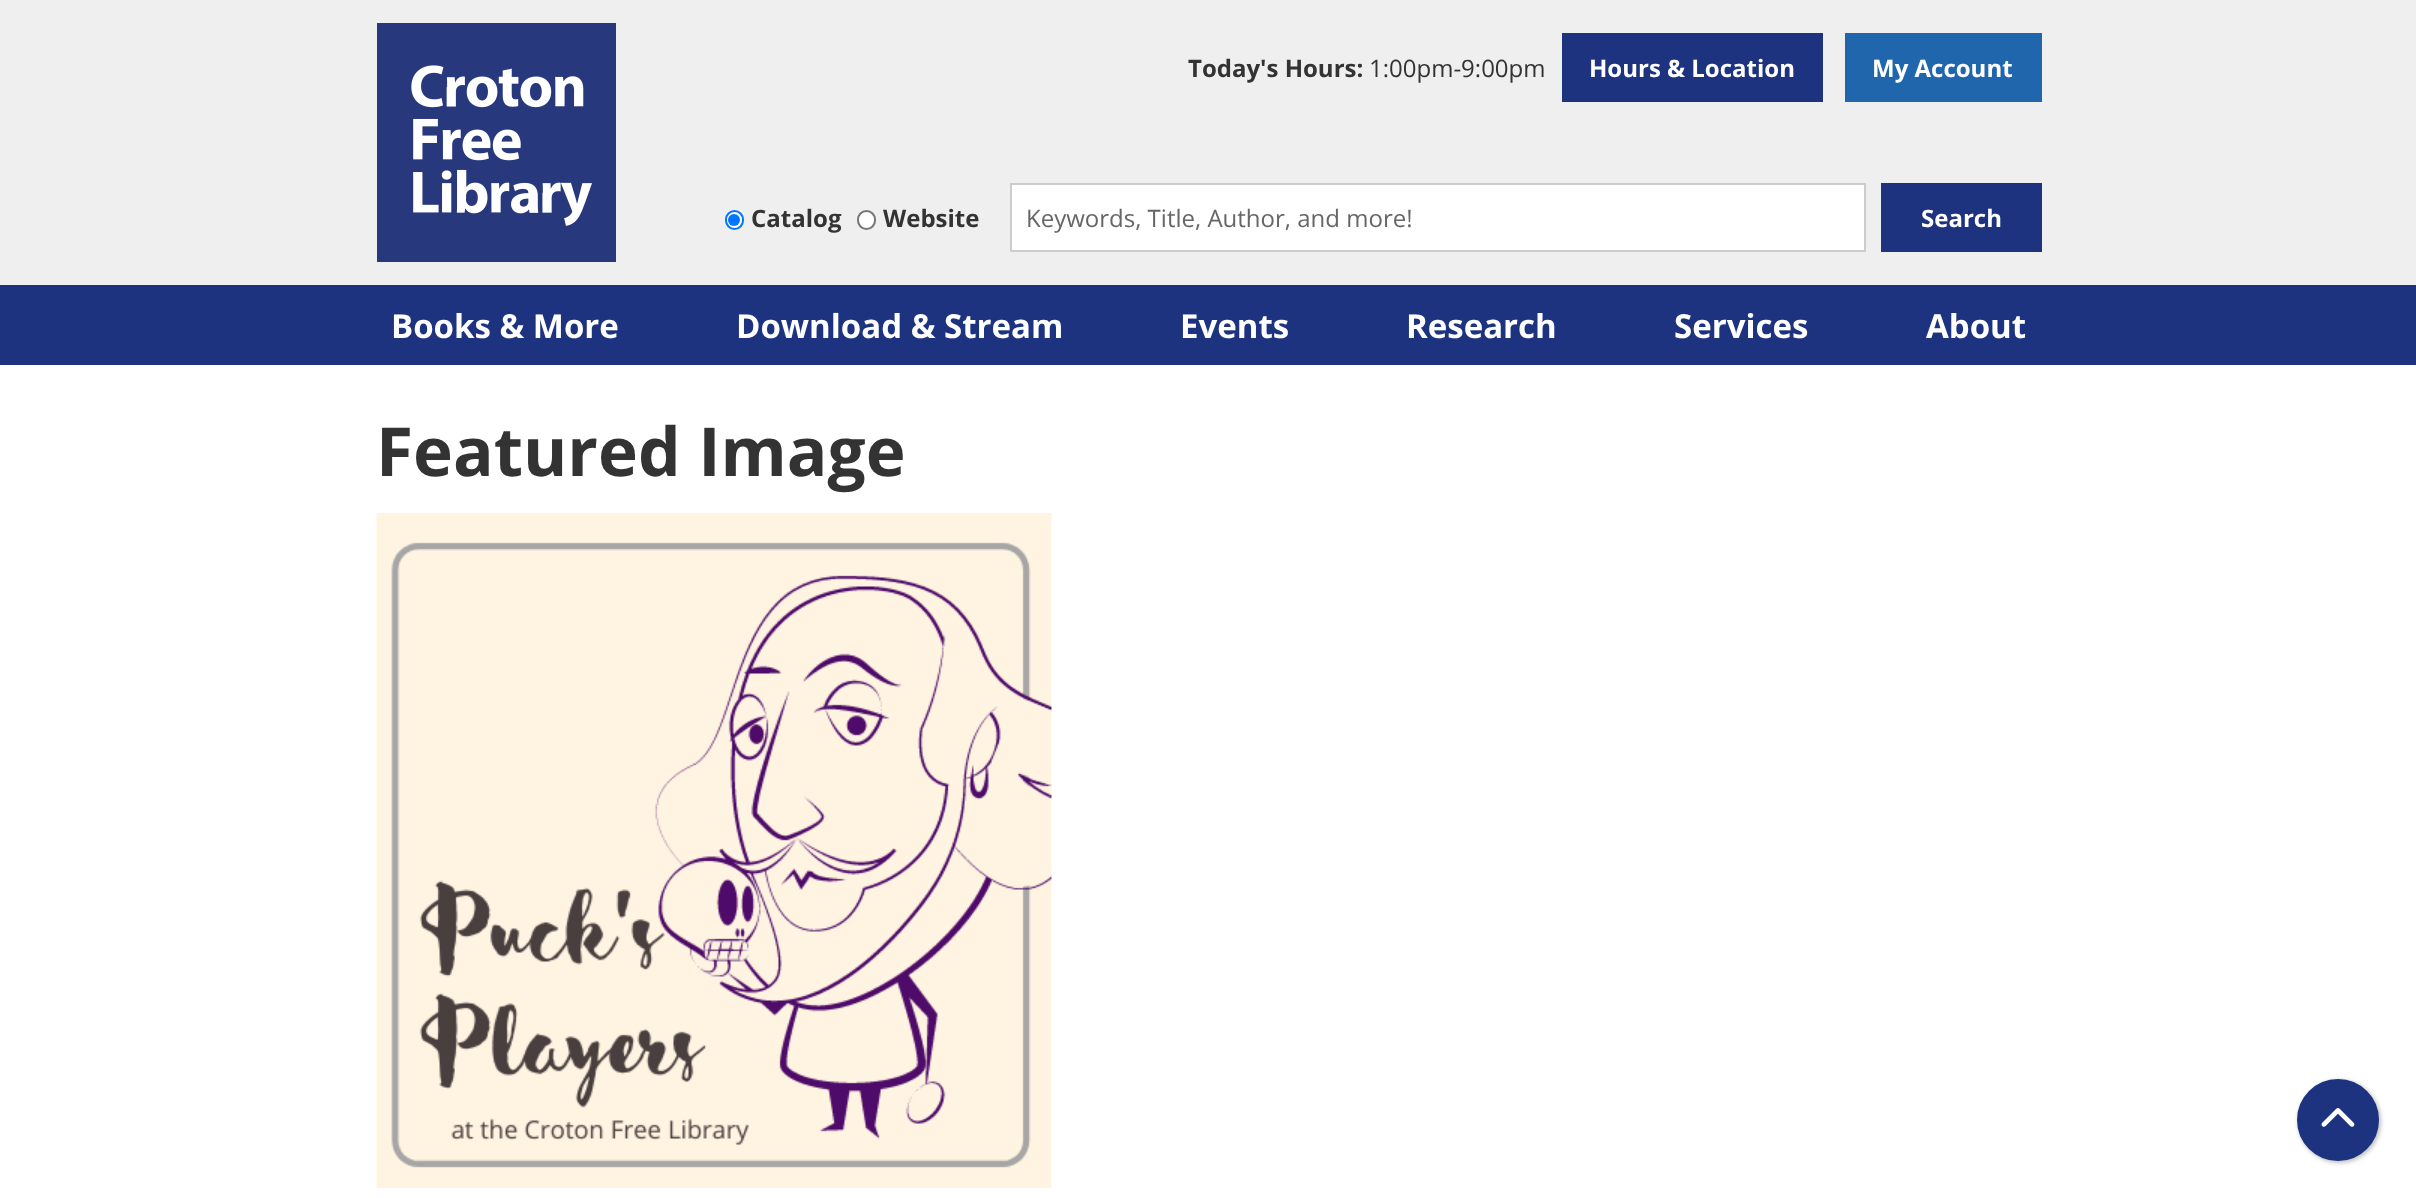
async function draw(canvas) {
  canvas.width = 2416;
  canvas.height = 1198;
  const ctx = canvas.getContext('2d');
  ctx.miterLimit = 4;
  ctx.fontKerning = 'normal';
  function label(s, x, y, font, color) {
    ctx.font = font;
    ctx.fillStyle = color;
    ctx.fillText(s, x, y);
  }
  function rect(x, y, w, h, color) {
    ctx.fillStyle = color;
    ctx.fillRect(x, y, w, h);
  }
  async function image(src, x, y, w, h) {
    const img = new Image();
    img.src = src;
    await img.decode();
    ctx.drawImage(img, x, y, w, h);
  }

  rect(0, 0, 2416, 1198, '#fff');
  rect(0, 0, 2416, 285, '#efefef');
  await image('assets/img1.png', 377, 23, 239, 239);
  label('Today\'s Hours:', 1188, 77, 'bold 24px Open Sans', '#333');
  label('1:00pm-9:00pm', 1369, 77, '24px Open Sans', '#333');
  rect(1562, 33, 261, 69, '#1d337f');
  label('Hours & Location', 1589, 77, 'bold 24px Open Sans', '#fff');
  rect(1845, 33, 197, 69, '#1f66ad');
  label('My Account', 1872, 77, 'bold 24px Open Sans', '#fff');
  ctx.beginPath();
  ctx.roundRect(726, 211, 17, 18, 8.5);
  ctx.fill();
  ctx.strokeStyle = '#0075ff';
  ctx.lineWidth = 2;
  ctx.stroke();
  ctx.fillStyle = '#0075ff';
  ctx.beginPath();
  ctx.arc(734, 220, 6, 0, 2 * Math.PI);
  ctx.fill();
  label('Catalog', 751, 227, 'bold 24px Open Sans', '#333');
  ctx.fillStyle = '#fff';
  ctx.beginPath();
  ctx.roundRect(858, 211, 17, 18, 8.5);
  ctx.fill();
  ctx.strokeStyle = '#767676';
  ctx.stroke();
  label('Website', 883, 227, 'bold 24px Open Sans', '#333');
  ctx.fillStyle = '#fff';
  ctx.beginPath();
  ctx.rect(1011, 184, 854, 67);
  ctx.fill();
  ctx.strokeStyle = '#ccc';
  ctx.stroke();
  label('Keywords, Title, Author, and more!', 1026, 227, '24px Open Sans', '#666');
  rect(1881, 183, 161, 69, '#1d337f');
  label('Search', 1921, 227, 'bold 24px Open Sans', '#fff');
  rect(0, 285, 2416, 80, '#1d337f');
  label('Books & More', 391, 338, 'bold 33px Open Sans', '#fff');
  label('Download & Stream', 736, 338, 'bold 33px Open Sans', '#fff');
  label('Events', 1180, 338, 'bold 33px Open Sans', '#fff');
  label('Research', 1406, 338, 'bold 33px Open Sans', '#fff');
  label('Services', 1674, 338, 'bold 33px Open Sans', '#fff');
  label('About', 1926, 338, 'bold 33px Open Sans', '#fff');
  label('Featured Image', 376, 476, 'bold 67.5px Open Sans', '#333');
  await image('assets/img2.png', 376, 513, 676, 675);
  ctx.fillStyle = '#00000040';
  ctx.filter = 'blur(2px)';
  ctx.beginPath();
  ctx.roundRect(2298, 1080, 83, 83, 41.5);
  ctx.fill();
  ctx.filter = 'none';
  ctx.fillStyle = '#1d337f';
  ctx.beginPath();
  ctx.arc(2338, 1120, 40, 0, 2 * Math.PI);
  ctx.fill();
  ctx.strokeStyle = '#1d337f';
  ctx.stroke();
  await image('assets/img3.png', 2321, 1108, 34, 19);
}

draw(document.querySelector('canvas'));
